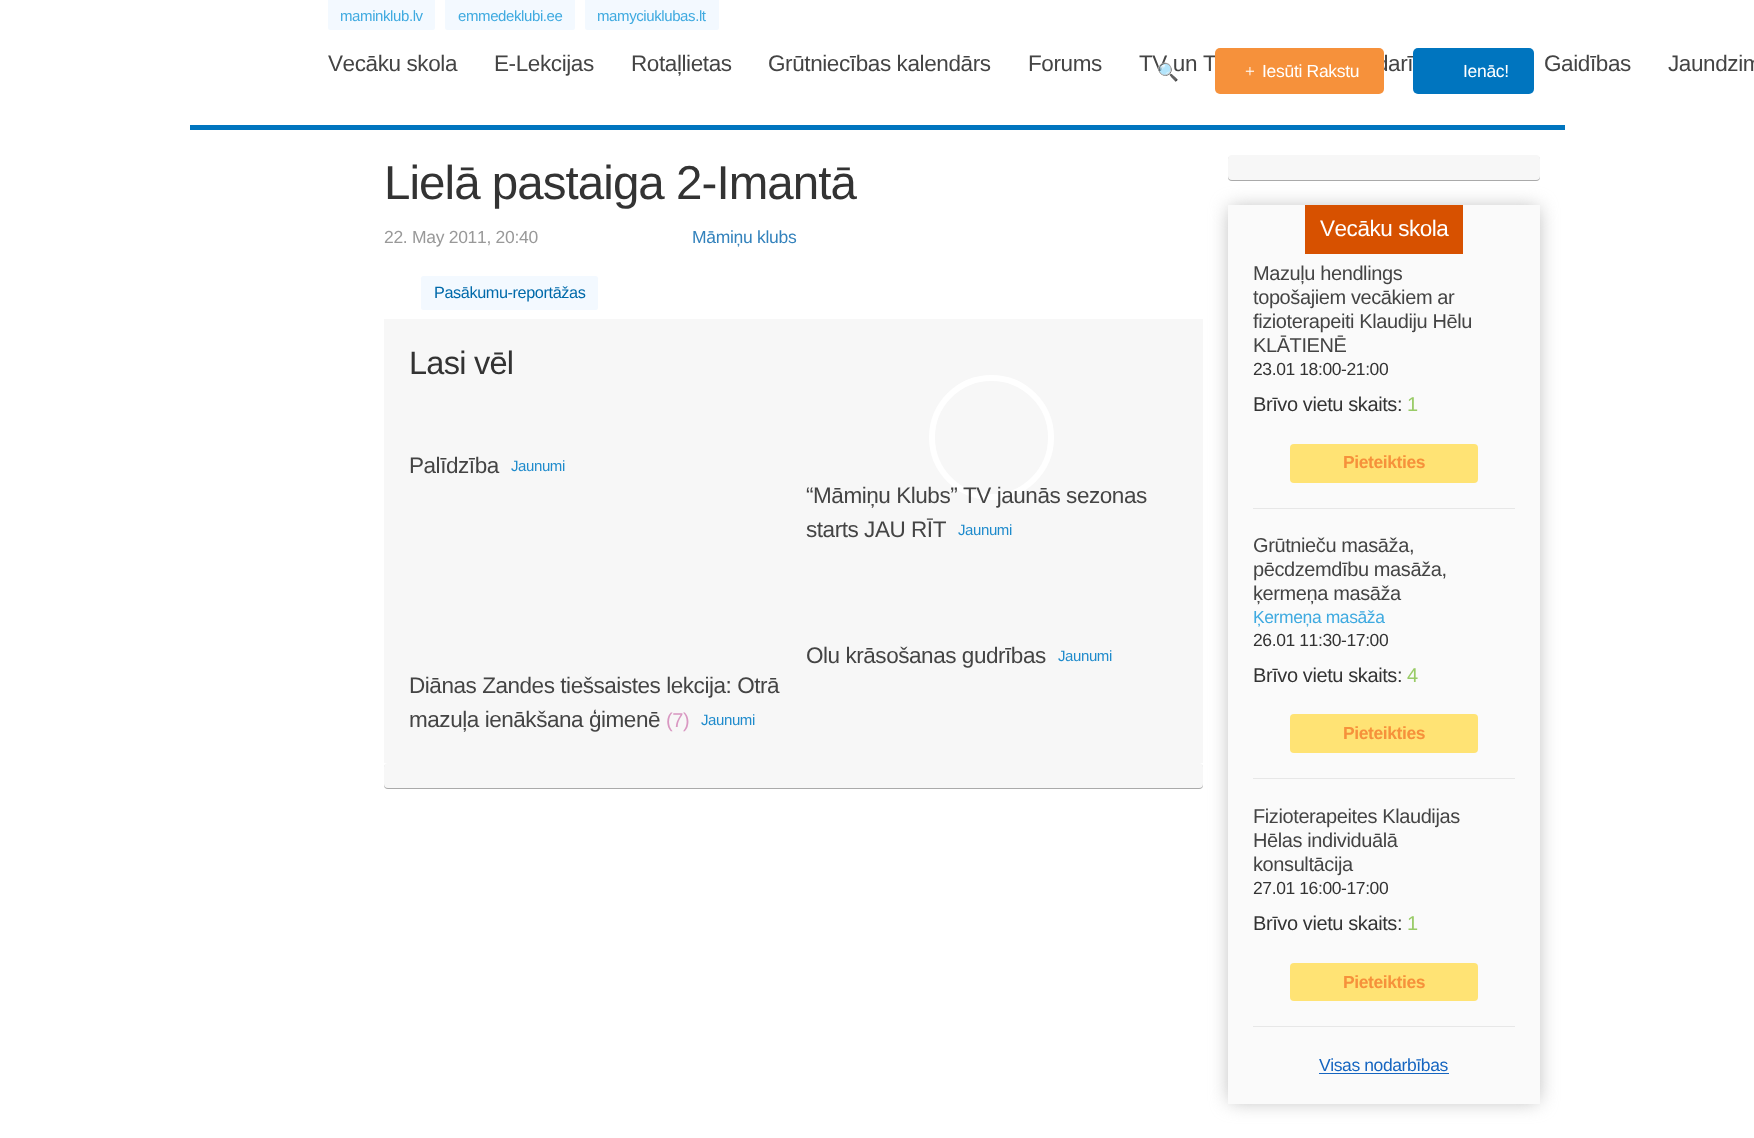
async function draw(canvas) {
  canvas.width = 1754;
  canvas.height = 1138;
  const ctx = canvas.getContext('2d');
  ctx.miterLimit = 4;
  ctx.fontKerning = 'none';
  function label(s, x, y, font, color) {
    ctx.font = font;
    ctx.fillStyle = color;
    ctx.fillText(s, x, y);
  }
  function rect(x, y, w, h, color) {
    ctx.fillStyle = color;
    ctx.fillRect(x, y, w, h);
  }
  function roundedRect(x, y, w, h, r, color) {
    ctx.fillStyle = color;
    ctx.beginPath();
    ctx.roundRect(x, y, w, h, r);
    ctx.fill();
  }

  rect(0, 0, 1754, 1138, '#fff');
  rect(190, 125, 1375, 5, '#0075bf');
  ctx.fillStyle = '#f3f9ff';
  ctx.beginPath();
  ctx.roundRect(328, 0, 107, 30, [0, 0, 2.5, 2.5]);
  ctx.fill();
  ctx.letterSpacing = '-0.4px';
  label('maminklub.lv', 340, 21, '15px Liberation Sans', '#3faae0');
  ctx.fillStyle = '#f3f9ff';
  ctx.beginPath();
  ctx.roundRect(445, 0, 130, 30, [0, 0, 2.5, 2.5]);
  ctx.fill();
  label('emmedeklubi.ee', 458, 21, '15px Liberation Sans', '#3faae0');
  ctx.fillStyle = '#f3f9ff';
  ctx.beginPath();
  ctx.roundRect(585, 0, 134, 30, [0, 0, 2.5, 2.5]);
  ctx.fill();
  label('mamyciuklubas.lt', 597, 21, '15px Liberation Sans', '#3faae0');
  label('Vecāku skola', 328, 71, '22.5px Liberation Sans', '#444');
  label('E-Lekcijas', 494, 71, '22.5px Liberation Sans', '#444');
  label('Rotaļlietas', 631, 71, '22.5px Liberation Sans', '#444');
  label('Grūtniecības kalendārs', 768, 71, '22.5px Liberation Sans', '#444');
  label('Forums', 1028, 71, '22.5px Liberation Sans', '#444');
  label('TV un T', 1139, 71, '22.5px Liberation Sans', '#444');
  label('darī', 1376, 71, '22.5px Liberation Sans', '#444');
  label('Gaidības', 1544, 71, '22.5px Liberation Sans', '#444');
  label('Jaundzim', 1668, 71, '22.5px Liberation Sans', '#444');
  ctx.letterSpacing = '-0.3px';
  label('🔍', 1157, 78, '17.5px Noto Color Emoji', '#444');
  roundedRect(1215, 48, 169, 46, 5, '#f6913b');
  label('+', 1245, 77, '17.5px Liberation Serif', '#fff');
  label('Iesūti Rakstu', 1262, 77, '17.5px Liberation Sans', '#fff');
  roundedRect(1413, 48, 121, 46, 5, '#0075bf');
  label('Ienāc!', 1463, 77, '17.5px Liberation Sans', '#fff');
  ctx.letterSpacing = '-0.95px';
  label('Lielā pastaiga 2-Imantā', 384, 199, '47.5px Liberation Sans', '#333');
  ctx.letterSpacing = '-0.3px';
  label('22. May 2011, 20:40', 384, 243, '17.5px Liberation Sans', '#999');
  label('Māmiņu klubs', 692, 243, '17.5px Liberation Sans', '#3382bc');
  roundedRect(421, 276, 177, 34, 2.5, '#f3f9ff');
  ctx.letterSpacing = '-0.4px';
  label('Pasākumu-reportāžas', 434, 298, '16.25px Liberation Sans', '#006aaa');
  rect(384, 319, 819, 444, '#f7f7f7');
  ctx.letterSpacing = '-0.75px';
  label('Lasi vēl', 409, 374, '32.5px Liberation Sans', '#333');
  ctx.letterSpacing = '-0.45px';
  label('Palīdzība', 409, 473, '22.5px Liberation Sans', '#444');
  ctx.letterSpacing = '-0.4px';
  label('Jaunumi', 511, 471, '15px Liberation Sans', '#1f8bcc');
  ctx.beginPath();
  ctx.arc(991.5, 437.5, 59.5, 0, 2 * Math.PI);
  ctx.strokeStyle = '#fff';
  ctx.lineWidth = 6;
  ctx.stroke();
  ctx.letterSpacing = '-0.45px';
  label('“Māmiņu Klubs” TV jaunās sezonas', 806, 503, '22.5px Liberation Sans', '#444');
  label('starts JAU RĪT', 806, 537, '22.5px Liberation Sans', '#444');
  ctx.letterSpacing = '-0.4px';
  label('Jaunumi', 958, 535, '15px Liberation Sans', '#1f8bcc');
  ctx.letterSpacing = '-0.45px';
  label('Olu krāsošanas gudrības', 806, 663, '22.5px Liberation Sans', '#444');
  ctx.letterSpacing = '-0.4px';
  label('Jaunumi', 1058, 661, '15px Liberation Sans', '#1f8bcc');
  ctx.letterSpacing = '-0.45px';
  label('Diānas Zandes tiešsaistes lekcija: Otrā', 409, 693, '22.5px Liberation Sans', '#444');
  label('mazuļa ienākšana ģimenē', 409, 727, '22.5px Liberation Sans', '#444');
  ctx.letterSpacing = '-0.4px';
  label('(7)', 666, 727, '20px Liberation Sans', '#d998c2');
  label('Jaunumi', 701, 725, '15px Liberation Sans', '#1f8bcc');
  ctx.fillStyle = '#aaa';
  ctx.filter = 'blur(0.5px)';
  ctx.beginPath();
  ctx.roundRect(384, 764, 819, 25, 4);
  ctx.fill();
  ctx.filter = 'none';
  roundedRect(384, 763, 819, 25, 4, '#f7f7f7');
  ctx.fillStyle = '#aaa';
  ctx.filter = 'blur(0.5px)';
  ctx.beginPath();
  ctx.roundRect(1228, 156, 312, 25, 4);
  ctx.fill();
  ctx.filter = 'none';
  roundedRect(1228, 155, 312, 25, 4, '#f7f7f7');
  ctx.fillStyle = '#abababe3';
  ctx.filter = 'blur(9.5px)';
  ctx.beginPath();
  ctx.rect(1230, 208, 308, 893);
  ctx.fill();
  ctx.filter = 'none';
  rect(1228, 205, 312, 899, '#fafafa');
  rect(1305, 205, 158, 49, '#d75100');
  ctx.letterSpacing = '-0.45px';
  label('Vecāku skola', 1320, 236, '22.5px Liberation Sans', '#fff');
  rect(1253, 508, 262, 1, '#e7e7e7');
  ctx.letterSpacing = '-0.4px';
  label('Mazuļu hendlings', 1253, 280, '20px Liberation Sans', '#444');
  label('topošajiem vecākiem ar', 1253, 304, '20px Liberation Sans', '#444');
  label('fizioterapeiti Klaudiju Hēlu', 1253, 328, '20px Liberation Sans', '#444');
  label('KLĀTIENĒ', 1253, 352, '20px Liberation Sans', '#444');
  label('23.01 18:00-21:00', 1253, 375, '17.5px Liberation Sans', '#333');
  label('Brīvo vietu skaits:', 1253, 411, '20px Liberation Sans', '#333');
  label('1', 1407, 411, '20px Liberation Sans', '#99cb67');
  roundedRect(1290, 444, 188, 39, 4, '#ffe374');
  label('Pieteikties', 1343, 468, 'bold 17.5px Liberation Sans', '#f6913b');
  rect(1253, 778, 262, 1, '#e7e7e7');
  label('Grūtnieču masāža,', 1253, 552, '20px Liberation Sans', '#444');
  label('pēcdzemdību masāža,', 1253, 576, '20px Liberation Sans', '#444');
  label('ķermeņa masāža', 1253, 600, '20px Liberation Sans', '#444');
  label('Ķermeņa masāža', 1253, 623, '17.5px Liberation Sans', '#3faae0');
  label('26.01 11:30-17:00', 1253, 646, '17.5px Liberation Sans', '#333');
  label('Brīvo vietu skaits:', 1253, 682, '20px Liberation Sans', '#333');
  label('4', 1407, 682, '20px Liberation Sans', '#99cb67');
  roundedRect(1290, 714, 188, 39, 4, '#ffe374');
  label('Pieteikties', 1343, 739, 'bold 17.5px Liberation Sans', '#f6913b');
  rect(1253, 1026, 262, 1, '#e7e7e7');
  label('Fizioterapeites Klaudijas', 1253, 823, '20px Liberation Sans', '#444');
  label('Hēlas individuālā', 1253, 847, '20px Liberation Sans', '#444');
  label('konsultācija', 1253, 871, '20px Liberation Sans', '#444');
  label('27.01 16:00-17:00', 1253, 894, '17.5px Liberation Sans', '#333');
  label('Brīvo vietu skaits:', 1253, 930, '20px Liberation Sans', '#333');
  label('1', 1407, 930, '20px Liberation Sans', '#99cb67');
  roundedRect(1290, 963, 188, 38, 4, '#ffe374');
  label('Pieteikties', 1343, 988, 'bold 17.5px Liberation Sans', '#f6913b');
  label('Visas nodarbības', 1319, 1071, '17.5px Liberation Sans', '#1565c0');
  rect(1319, 1073, 130, 1, '#1565c0');
}

draw(document.querySelector('canvas'));
